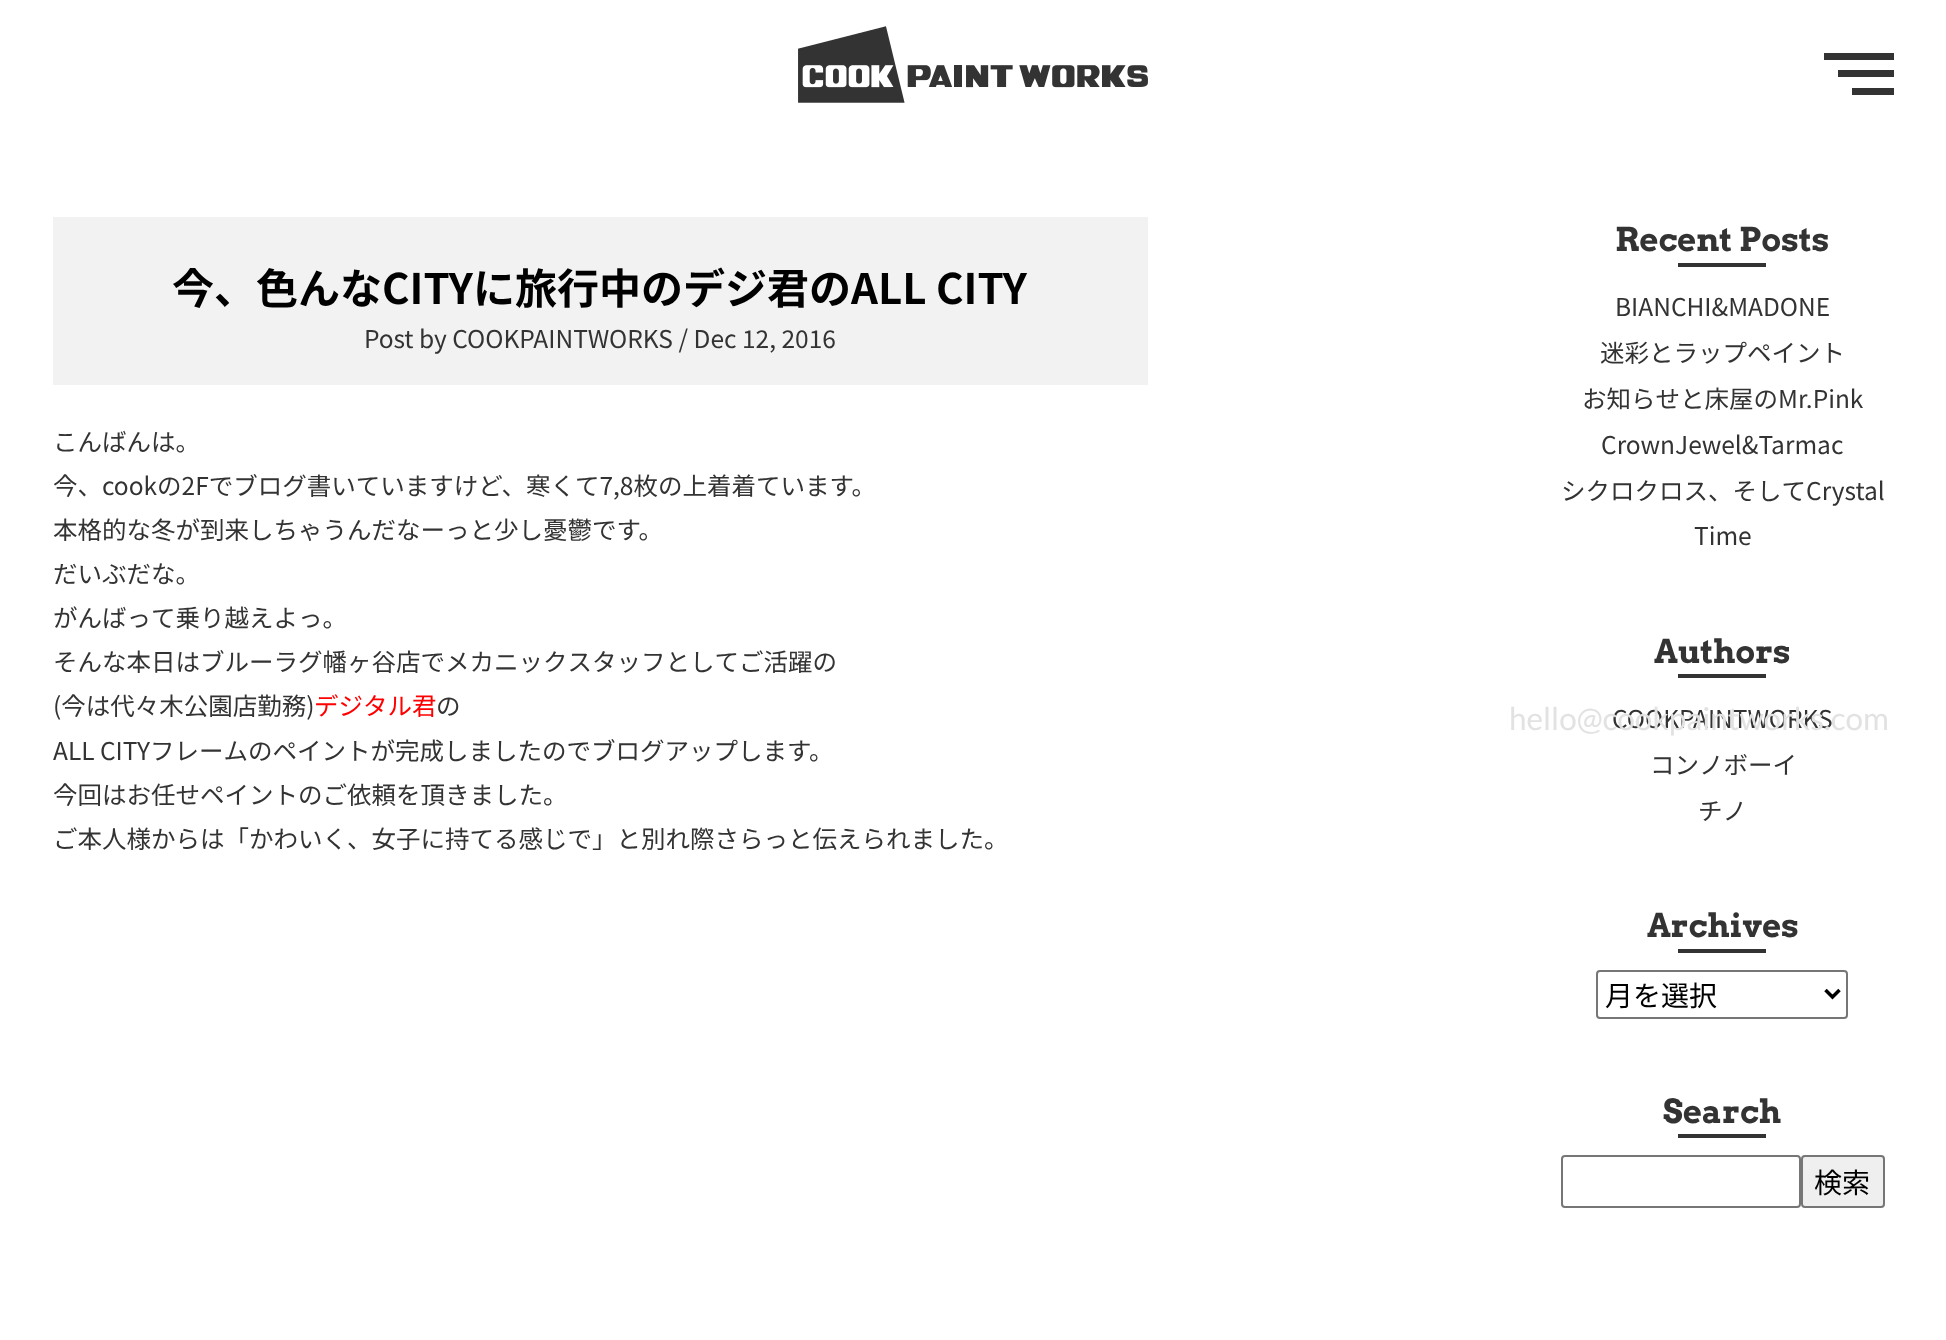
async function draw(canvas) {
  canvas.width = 1946;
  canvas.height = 1340;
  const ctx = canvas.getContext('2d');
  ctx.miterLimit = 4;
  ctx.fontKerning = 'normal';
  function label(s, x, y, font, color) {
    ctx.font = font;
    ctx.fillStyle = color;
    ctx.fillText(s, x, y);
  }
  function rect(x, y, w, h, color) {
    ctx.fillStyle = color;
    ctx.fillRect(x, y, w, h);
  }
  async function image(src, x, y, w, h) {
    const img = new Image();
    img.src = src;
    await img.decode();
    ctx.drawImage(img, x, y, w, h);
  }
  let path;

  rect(0, 0, 1946, 1340, '#fff');
  rect(53, 217, 1095, 168, '#f2f2f2');
  label('今、色んなCITYに旅行中のデジ君のALL CITY', 172, 304, 'bold 42px Noto Sans JP', '#000');
  label('Post by COOKPAINTWORKS / Dec 12, 2016', 364, 348, '24.5px Noto Sans JP', '#333');
  label('こんばんは。', 53, 451, '24.5px Noto Sans JP', '#333');
  label('今、cookの2Fでブログ書いていますけど、寒くて7,8枚の上着着ています。', 53, 495, '24.5px Noto Sans JP', '#333');
  label('本格的な冬が到来しちゃうんだなーっと少し憂鬱です。', 53, 539, '24.5px Noto Sans JP', '#333');
  label('だいぶだな。', 53, 583, '24.5px Noto Sans JP', '#333');
  label('がんばって乗り越えよっ。', 53, 627, '24.5px Noto Sans JP', '#333');
  label('そんな本日はブルーラグ幡ヶ谷店でメカニックスタッフとしてご活躍の', 53, 671, '24.5px Noto Sans JP', '#333');
  label('(今は代々木公園店勤務)', 53, 715, '24.5px Noto Sans JP', '#333');
  label('デジタル君', 314, 715, '24.5px Noto Sans JP', '#f00');
  label('の', 436, 715, '24.5px Noto Sans JP', '#333');
  label('ALL CITYフレームのペイントが完成しましたのでブログアップします。', 53, 760, '24.5px Noto Sans JP', '#333');
  label('今回はお任せペイントのご依頼を頂きました。', 53, 804, '24.5px Noto Sans JP', '#333');
  label('ご本人様からは「かわいく、女子に持てる感じで」と別れ際さらっと伝えられました。', 53, 848, '24.5px Noto Sans JP', '#333');
  label('Recent Posts', 1615, 251, 'bold 32.75px Arvo', '#333');
  rect(1678, 263, 88, 4, '#333');
  label('BIANCHI&MADONE', 1615, 316, '24.5px Noto Sans JP', '#333');
  label('迷彩とラップペイント', 1600, 362, '24.5px Noto Sans JP', '#333');
  label('お知らせと床屋のMr.Pink', 1582, 408, '24.5px Noto Sans JP', '#333');
  label('CrownJewel&Tarmac', 1601, 454, '24.5px Noto Sans JP', '#333');
  label('シクロクロス、そしてCrystal', 1561, 500, '24.5px Noto Sans JP', '#333');
  label('Time', 1694, 545, '24.5px Noto Sans JP', '#333');
  label('Authors', 1654, 663, 'bold 32.75px Arvo', '#333');
  rect(1678, 674, 88, 4, '#333');
  label('COOKPAINTWORKS', 1612, 728, '24.5px Noto Sans JP', '#333');
  label('コンノボーイ', 1650, 774, '24.5px Noto Sans JP', '#333');
  label('チノ', 1698, 820, '24.5px Noto Sans JP', '#333');
  label('Archives', 1647, 937, 'bold 32.75px Arvo', '#333');
  rect(1678, 949, 88, 4, '#333');
  ctx.beginPath();
  ctx.roundRect(1597, 971, 250, 47, 3);
  ctx.strokeStyle = '#767676';
  ctx.lineWidth = 2;
  ctx.stroke();
  path = new Path2D('M1825.5 990L1832.5 997L1839.5 990');
  ctx.strokeStyle = '#000';
  ctx.lineWidth = 3.5;
  ctx.stroke(path);
  label('月を選択', 1605, 1006, '28px Noto Sans JP', '#000');
  label('Search', 1663, 1123, 'bold 32.75px Arvo', '#333');
  rect(1678, 1134, 88, 4, '#333');
  ctx.beginPath();
  ctx.roundRect(1562, 1156, 238, 51, 3);
  ctx.strokeStyle = '#767676';
  ctx.lineWidth = 2;
  ctx.stroke();
  ctx.fillStyle = '#efefef';
  ctx.beginPath();
  ctx.roundRect(1802, 1156, 82, 51, 3);
  ctx.fill();
  ctx.stroke();
  label('検索', 1814, 1193, '28px Noto Sans JP', '#000');
  await image('assets/img1.png', 798, 26, 350, 77);
  rect(1824, 53, 70, 7, '#333');
  rect(1838, 70, 56, 7, '#333');
  rect(1852, 88, 42, 7, '#333');
  label('hello@cookpaintworks.com', 1509, 730, '31.5px Lato', '#e2e2e2');
}

draw(document.querySelector('canvas'));
